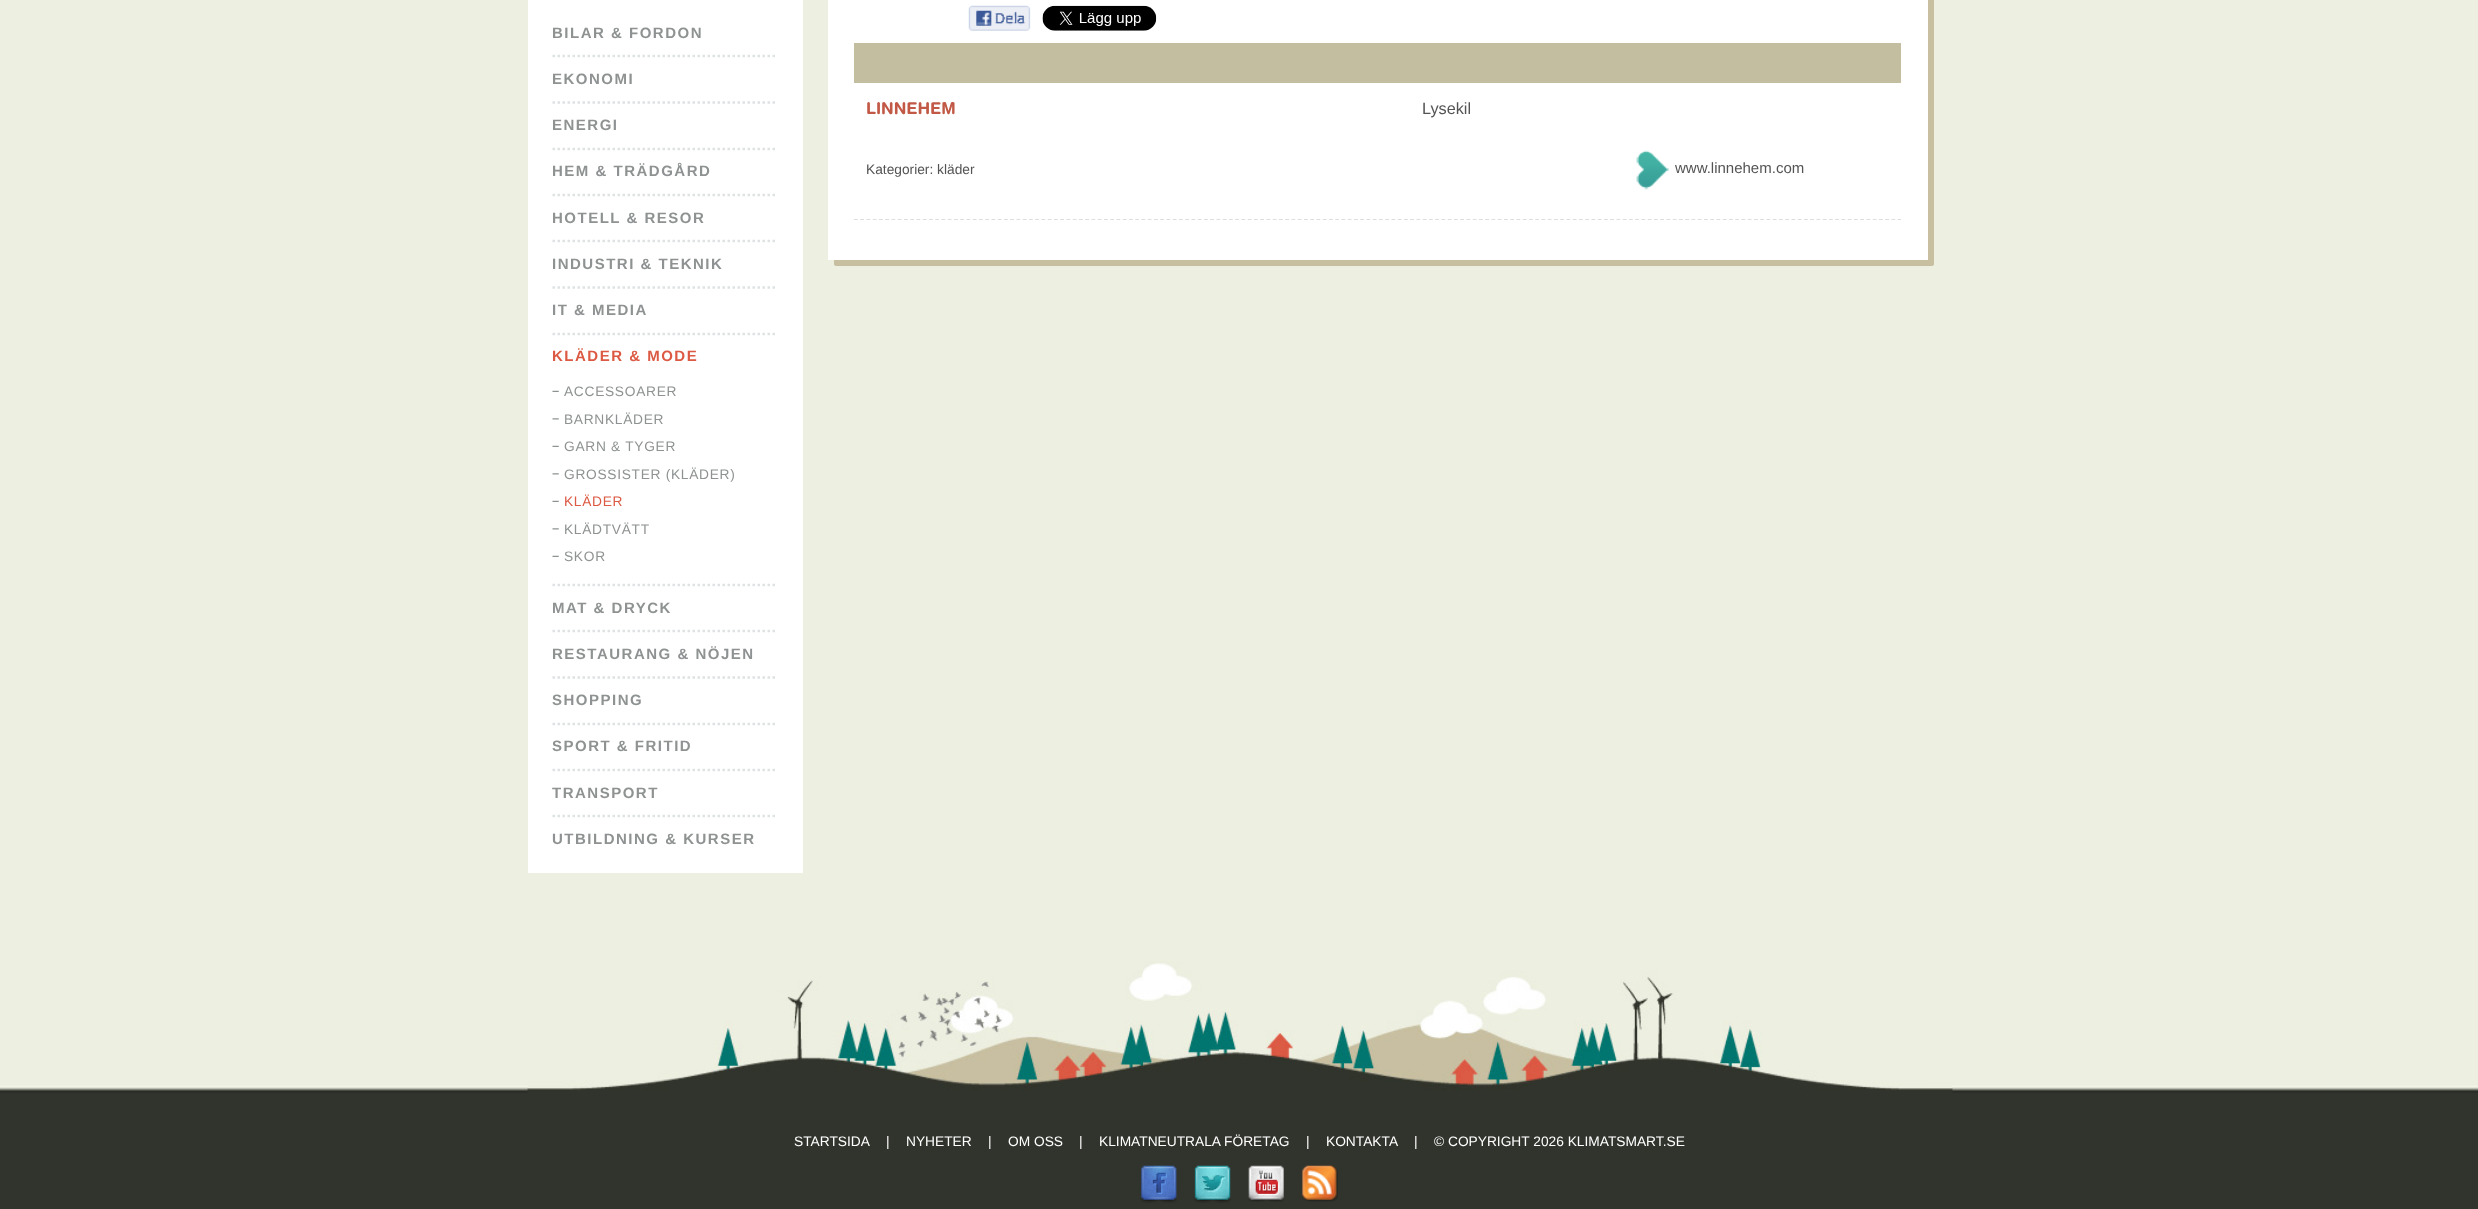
async function draw(canvas) {
  canvas.width = 2478;
  canvas.height = 1209;
  const ctx = canvas.getContext('2d');
  ctx.miterLimit = 4;
  ctx.fontKerning = 'normal';
  function label(s, x, y, font, color) {
    ctx.font = font;
    ctx.fillStyle = color;
    ctx.fillText(s, x, y);
  }
  function rect(x, y, w, h, color) {
    ctx.fillStyle = color;
    ctx.fillRect(x, y, w, h);
  }
  async function image(src, x, y, w, h) {
    const img = new Image();
    img.src = src;
    await img.decode();
    ctx.drawImage(img, x, y, w, h);
  }
  let path;

  rect(0, 0, 2478, 1209, '#edefe0');
  rect(528, 0, 275, 873, '#fff');
  ctx.letterSpacing = '1.5px';
  label('BILAR & FORDON', 552, 38, 'bold 15px Liberation Sans', '#8f9292');
  path = new Path2D('M552.5 56H777.5');
  ctx.strokeStyle = '#dee2e3';
  ctx.lineWidth = 2.5;
  ctx.setLineDash([2.5, 2.5]);
  ctx.stroke(path);
  label('EKONOMI', 552, 84, 'bold 15px Liberation Sans', '#8f9292');
  path = new Path2D('M552.5 102.5H777.5');
  ctx.stroke(path);
  label('ENERGI', 552, 130, 'bold 15px Liberation Sans', '#8f9292');
  path = new Path2D('M552.5 149H777.5');
  ctx.stroke(path);
  label('HEM & TRÄDGÅRD', 552, 176, 'bold 15px Liberation Sans', '#8f9292');
  path = new Path2D('M552.5 195H777.5');
  ctx.stroke(path);
  label('HOTELL & RESOR', 552, 223, 'bold 15px Liberation Sans', '#8f9292');
  path = new Path2D('M552.5 241H777.5');
  ctx.stroke(path);
  label('INDUSTRI & TEKNIK', 552, 269, 'bold 15px Liberation Sans', '#8f9292');
  path = new Path2D('M552.5 287.5H777.5');
  ctx.stroke(path);
  label('IT & MEDIA', 552, 315, 'bold 15px Liberation Sans', '#8f9292');
  path = new Path2D('M552.5 334H777.5');
  ctx.stroke(path);
  label('KLÄDER & MODE', 552, 361, 'bold 15px Liberation Sans', '#dc5943');
  await image('assets/img1.png', 552, 390, 7, 2);
  ctx.letterSpacing = '0.7px';
  label('ACCESSOARER', 564, 396, '13.75px Liberation Sans', '#8f9292');
  await image('assets/img2.png', 552, 418, 7, 2);
  label('BARNKLÄDER', 564, 424, '13.75px Liberation Sans', '#8f9292');
  await image('assets/img1.png', 552, 445, 7, 2);
  label('GARN & TYGER', 564, 451, '13.75px Liberation Sans', '#8f9292');
  await image('assets/img2.png', 552, 473, 7, 2);
  label('GROSSISTER (KLÄDER)', 564, 479, '13.75px Liberation Sans', '#8f9292');
  await image('assets/img1.png', 552, 500, 7, 2);
  label('KLÄDER', 564, 506, '13.75px Liberation Sans', '#dc5943');
  await image('assets/img2.png', 552, 528, 7, 2);
  label('KLÄDTVÄTT', 564, 534, '13.75px Liberation Sans', '#8f9292');
  await image('assets/img1.png', 552, 555, 7, 2);
  label('SKOR', 564, 561, '13.75px Liberation Sans', '#8f9292');
  path = new Path2D('M552.5 585H777.5');
  ctx.stroke(path);
  ctx.letterSpacing = '1.5px';
  label('MAT & DRYCK', 552, 613, 'bold 15px Liberation Sans', '#8f9292');
  path = new Path2D('M552.5 631H777.5');
  ctx.stroke(path);
  label('RESTAURANG & NÖJEN', 552, 659, 'bold 15px Liberation Sans', '#8f9292');
  path = new Path2D('M552.5 677.5H777.5');
  ctx.stroke(path);
  label('SHOPPING', 552, 705, 'bold 15px Liberation Sans', '#8f9292');
  path = new Path2D('M552.5 724H777.5');
  ctx.stroke(path);
  label('SPORT & FRITID', 552, 751, 'bold 15px Liberation Sans', '#8f9292');
  path = new Path2D('M552.5 770H777.5');
  ctx.stroke(path);
  label('TRANSPORT', 552, 798, 'bold 15px Liberation Sans', '#8f9292');
  path = new Path2D('M552.5 816H777.5');
  ctx.stroke(path);
  label('UTBILDNING & KURSER', 552, 844, 'bold 15px Liberation Sans', '#8f9292');
  ctx.fillStyle = '#c8bfa1';
  path = new Path2D('M834 260V264C834 265 835 266 836 266H1932C1933 266 1934 265 1934 264V-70C1934-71 1933-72 1932-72H1928V258C1928 259 1926 260 1925 260Z');
  ctx.fill(path);
  rect(828, 0, 1100, 260, '#fff');
  await image('assets/img3.png', 968, 5, 63, 26);
  await image('assets/img4.png', 1042, 5, 115, 26);
  rect(854, 43, 1047, 40, '#c4bea1');
  ctx.letterSpacing = '0px';
  label('LINNEHEM', 866, 114, 'bold 16.25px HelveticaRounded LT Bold', '#c15946');
  label('Lysekil', 1422, 114, '16.25px Liberation Sans', '#545454');
  await image('assets/img5.png', 1636, 150, 33, 40);
  label('www.linnehem.com', 1675, 173, '15px Liberation Sans', '#545454');
  label('Kategorier: kläder', 866, 174, '13.75px Liberation Sans', '#545454');
  path = new Path2D('M854 219.5H1901');
  ctx.strokeStyle = '#ddd';
  ctx.lineWidth = 1.2;
  ctx.setLineDash([3.75, 2.5]);
  ctx.stroke(path);
  rect(0, 1093, 2478, 116, '#31342d');
  await image('assets/img6.png', 0, 985, 2478, 108);
  await image('assets/img7.png', 527, 961, 1426, 132);
  label('STARTSIDA', 794, 1146, '13.75px Liberation Sans', '#fff');
  label('|', 886, 1146, '13.75px Liberation Sans', '#fff');
  label('NYHETER', 906, 1146, '13.75px Liberation Sans', '#fff');
  label('|', 988, 1146, '13.75px Liberation Sans', '#fff');
  label('OM OSS', 1008, 1146, '13.75px Liberation Sans', '#fff');
  label('|', 1079, 1146, '13.75px Liberation Sans', '#fff');
  label('KLIMATNEUTRALA FÖRETAG', 1099, 1146, '13.75px Liberation Sans', '#fff');
  label('|', 1306, 1146, '13.75px Liberation Sans', '#fff');
  label('KONTAKTA', 1326, 1146, '13.75px Liberation Sans', '#fff');
  label('|', 1414, 1146, '13.75px Liberation Sans', '#fff');
  label('© COPYRIGHT 2026 KLIMATSMART.SE', 1434, 1146, '13.75px Liberation Sans', '#fff');
  await image('assets/img8.png', 1141, 1165, 36, 38);
  await image('assets/img9.png', 1194, 1165, 37, 38);
  await image('assets/img10.png', 1248, 1165, 36, 37);
  await image('assets/img11.png', 1302, 1165, 36, 37);
}

draw(document.querySelector('canvas'));
